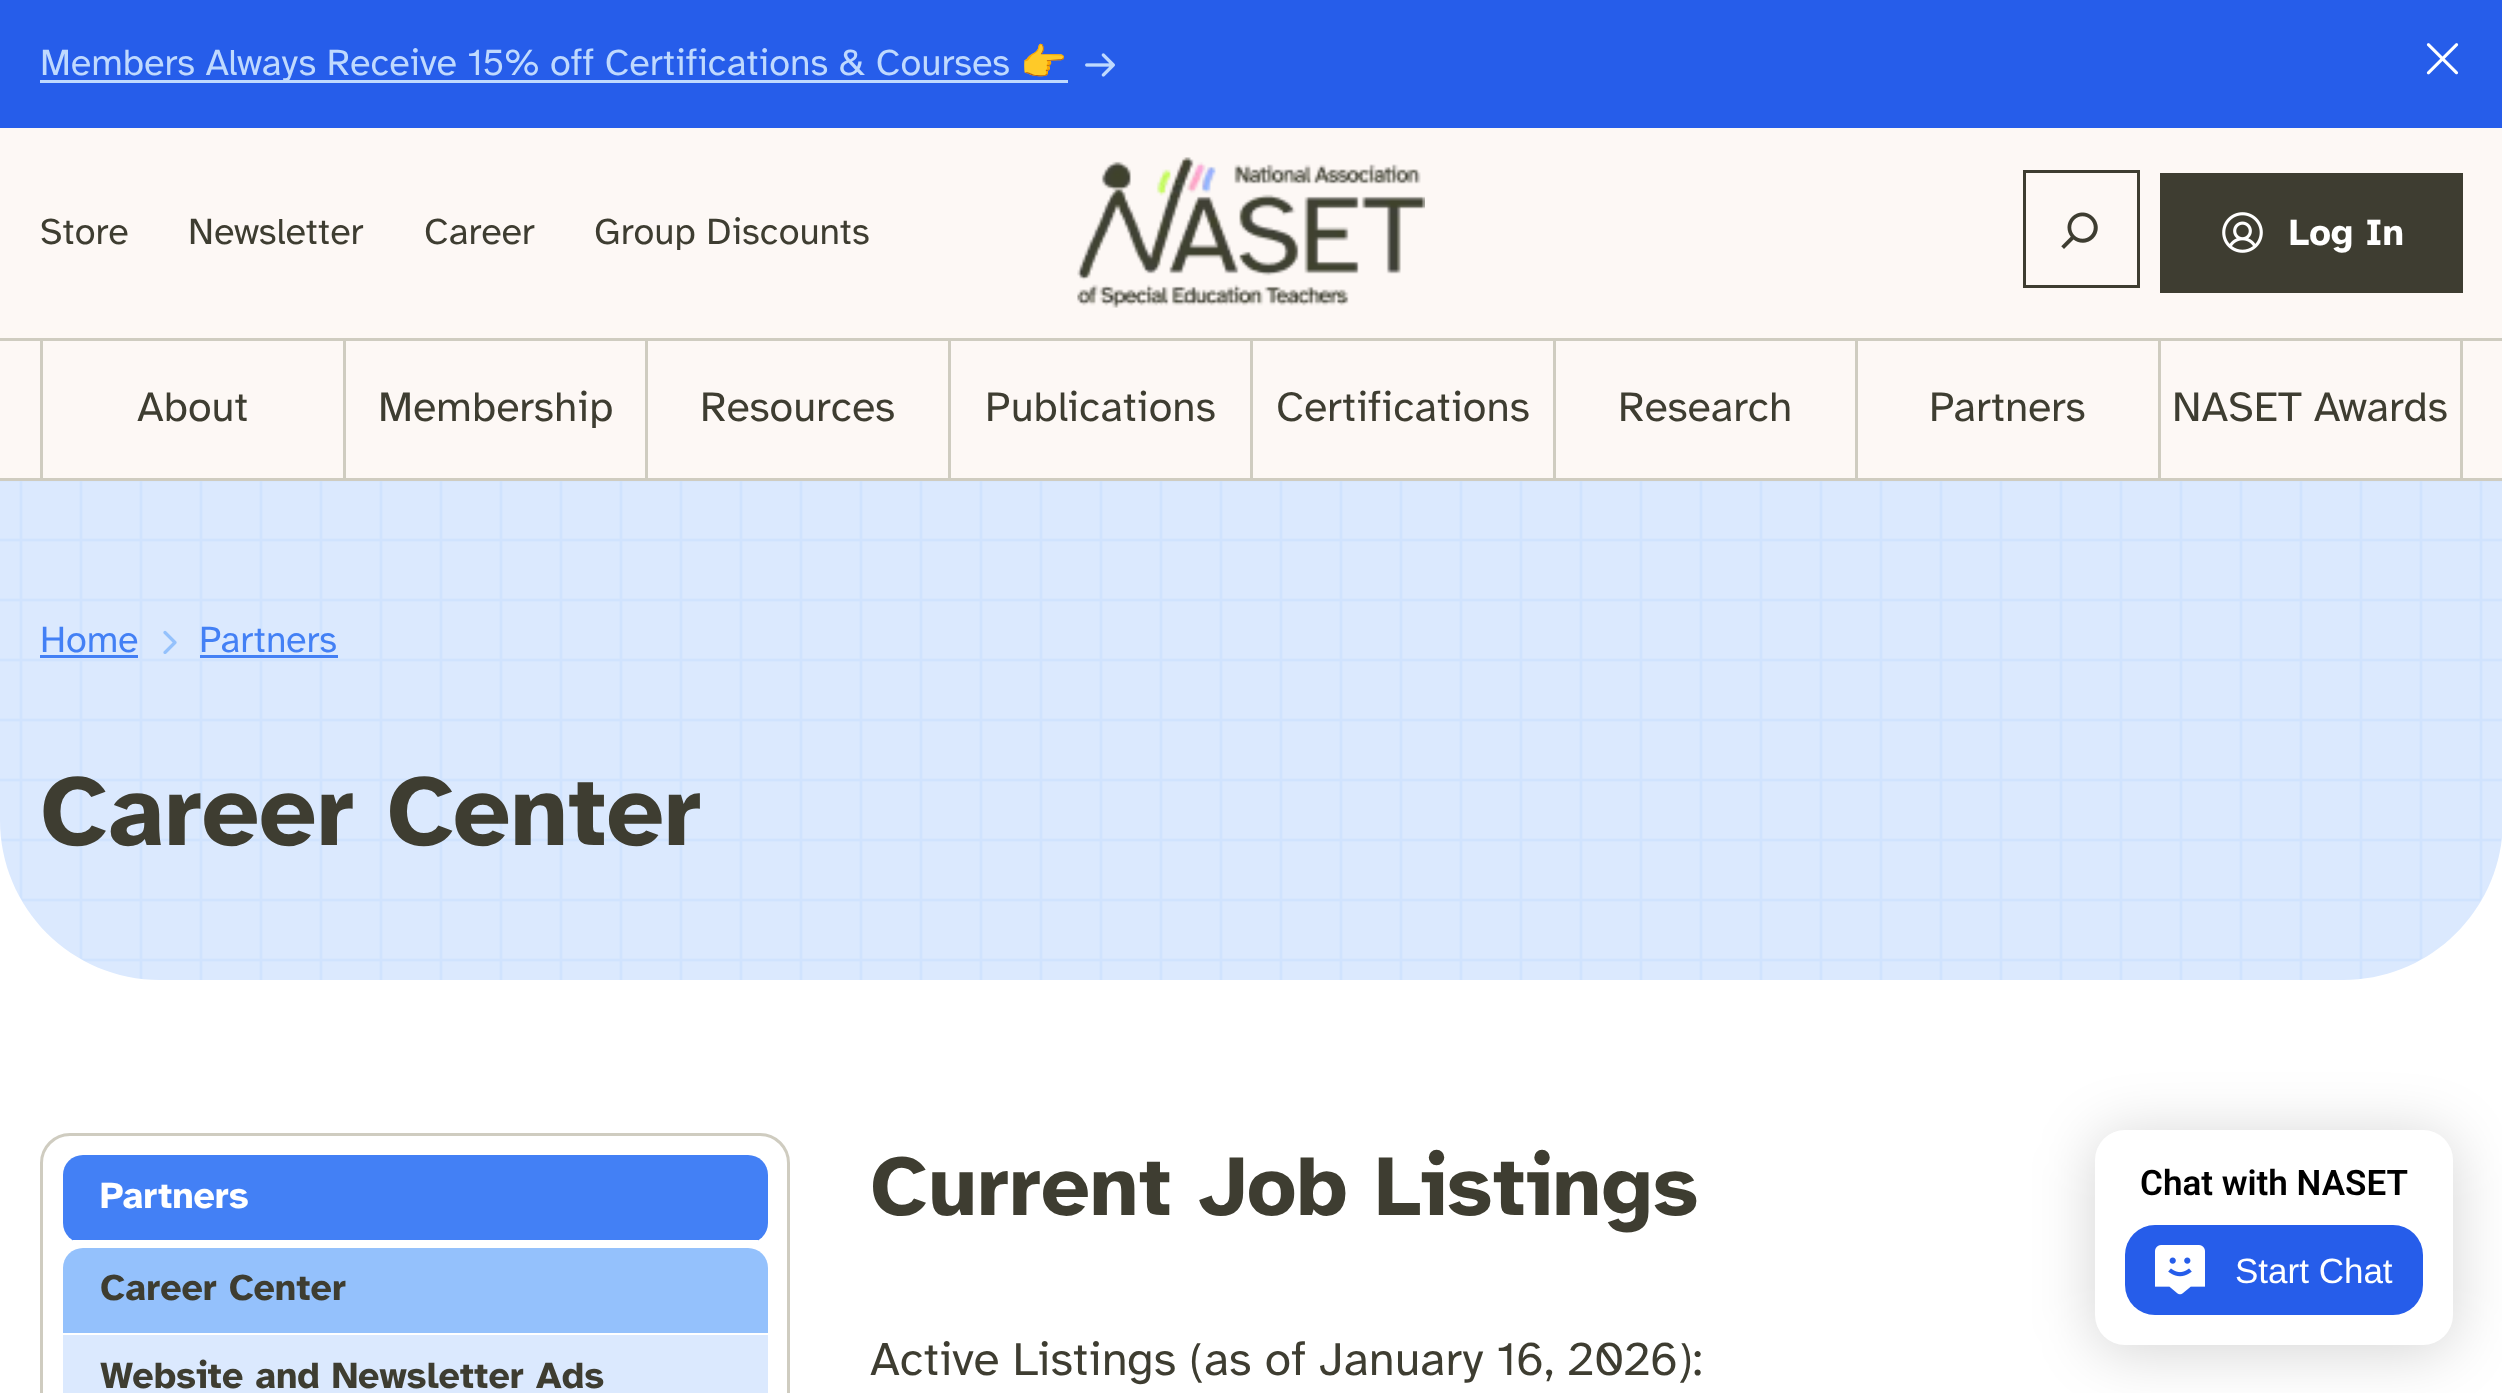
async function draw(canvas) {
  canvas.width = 2502;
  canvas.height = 1393;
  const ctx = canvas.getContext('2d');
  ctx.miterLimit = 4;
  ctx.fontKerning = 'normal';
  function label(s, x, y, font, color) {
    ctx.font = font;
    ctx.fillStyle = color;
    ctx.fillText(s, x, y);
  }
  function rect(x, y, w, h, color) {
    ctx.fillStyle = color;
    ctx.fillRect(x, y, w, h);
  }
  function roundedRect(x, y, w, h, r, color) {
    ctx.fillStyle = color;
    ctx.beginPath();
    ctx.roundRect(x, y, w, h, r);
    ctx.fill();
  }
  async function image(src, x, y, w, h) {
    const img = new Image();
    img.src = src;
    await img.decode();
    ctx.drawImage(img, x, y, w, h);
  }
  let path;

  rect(0, 0, 2502, 1393, '#fff');
  rect(0, 0, 2502, 128, '#265dea');
  rect(40, 80, 1028, 3, '#bfd9fe');
  label('Members Always Receive 15% off Certifications & Courses', 40, 75, '37.65px Atkinson Hyperlegible', '#bfd9fe');
  label('👉', 1020, 75, '37.65px Noto Color Emoji', '#bfd9fe');
  await image('assets/img1.png', 1085, 53, 30, 24);
  await image('assets/img2.png', 2426, 43, 33, 32);
  rect(0, 128, 2502, 350, '#fdf8f5');
  ctx.fillStyle = '#dbe9fe';
  path = new Path2D('M0 480H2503V820C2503 908.5 2431.5 980 2343 980H160C71.5 980 0 908.5 0 820Z');
  ctx.fill(path);
  rect(0, 478, 2502, 3, '#cfccc0');
  label('Store', 40, 244, '37.65px Atkinson Hyperlegible', '#3e3d31');
  label('Newsletter', 188, 244, '37.65px Atkinson Hyperlegible', '#3e3d31');
  label('Career', 424, 244, '37.65px Atkinson Hyperlegible', '#3e3d31');
  label('Group Discounts', 594, 244, '37.65px Atkinson Hyperlegible', '#3e3d31');
  await image('assets/img3.png', 1077, 157, 348, 151);
  ctx.strokeStyle = '#3e3d31';
  ctx.lineWidth = 3;
  ctx.strokeRect(2024.5, 171.5, 114, 115);
  await image('assets/img4.png', 2061, 212, 37, 37);
  rect(2160, 173, 303, 120, '#3e3d31');
  await image('assets/img5.png', 2222, 212, 41, 41);
  label('Log In', 2289, 245, 'bold 37.65px Atkinson Hyperlegible', '#fff');
  rect(0, 338, 2502, 3, '#cfccc0');
  rect(2460, 338, 3, 140, '#cfccc0');
  rect(40, 338, 3, 140, '#cfccc0');
  rect(343, 338, 3, 140, '#cfccc0');
  label('About', 137, 421, '42.75px Atkinson Hyperlegible', '#3e3d31');
  rect(645, 338, 3, 140, '#cfccc0');
  label('Membership', 378, 421, '42.75px Atkinson Hyperlegible', '#3e3d31');
  rect(948, 338, 3, 140, '#cfccc0');
  label('Resources', 700, 421, '42.75px Atkinson Hyperlegible', '#3e3d31');
  rect(1250, 338, 3, 140, '#cfccc0');
  label('Publications', 985, 421, '42.75px Atkinson Hyperlegible', '#3e3d31');
  rect(1553, 338, 3, 140, '#cfccc0');
  label('Certifications', 1276, 421, '42.75px Atkinson Hyperlegible', '#3e3d31');
  rect(1855, 338, 3, 140, '#cfccc0');
  label('Research', 1618, 421, '42.75px Atkinson Hyperlegible', '#3e3d31');
  rect(2158, 338, 3, 140, '#cfccc0');
  label('Partners', 1929, 421, '42.75px Atkinson Hyperlegible', '#3e3d31');
  label('NASET Awards', 2172, 421, '42.75px Atkinson Hyperlegible', '#3e3d31');
  await image('assets/img6.png', 0, 481, 2502, 499);
  label('Home', 40, 652, '37.65px Atkinson Hyperlegible', '#4380f5');
  rect(40, 655, 98, 3, '#4380f5');
  await image('assets/img7.png', 163, 630, 14, 24);
  label('Partners', 199, 652, '37.65px Atkinson Hyperlegible', '#4380f5');
  rect(200, 655, 138, 3, '#4380f5');
  label('Career Center', 40, 845, 'bold 101.25px Atkinson Hyperlegible', '#3e3d31');
  ctx.beginPath();
  ctx.roundRect(41.5, 1134.5, 747, 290, 28.5);
  ctx.strokeStyle = '#cfccc0';
  ctx.stroke();
  roundedRect(63, 1155, 705, 88, 20, '#4380f5');
  rect(73, 1240, 685, 3, '#fff');
  label('Partners', 100, 1208, 'bold 37.65px Atkinson Hyperlegible', '#fff');
  ctx.fillStyle = '#94c1fc';
  ctx.beginPath();
  ctx.roundRect(63, 1248, 705, 87, [20, 20, 0, 0]);
  ctx.fill();
  rect(63, 1333, 705, 2, '#fff');
  label('Career Center', 100, 1300, 'bold 37.65px Atkinson Hyperlegible', '#3e3d31');
  rect(63, 1335, 705, 58, '#dbe9fe');
  label('Website and Newsletter Ads', 100, 1388, 'bold 37.65px Atkinson Hyperlegible', '#3e3d31');
  label('Current Job Listings', 870, 1215, 'bold 86px Atkinson Hyperlegible', '#3e3d31');
  label('Active Listings (as of January 16, 2026):', 870, 1375, '47.7px Atkinson Hyperlegible', '#3e3d31');
  ctx.fillStyle = '#00000029';
  ctx.filter = 'blur(30px)';
  ctx.beginPath();
  ctx.roundRect(2093, 1133, 362, 220, 33);
  ctx.fill();
  ctx.filter = 'none';
  roundedRect(2095, 1130, 358, 215, 30, '#fff');
  label('Chat with NASET', 2140, 1195, '600 35px Roboto', '#000');
  roundedRect(2125, 1225, 298, 90, 30, '#265dea');
  await image('assets/img8.png', 2155, 1245, 50, 50);
  label('Start Chat', 2235, 1283, '35px Liberation Sans', '#fff');
}

draw(document.querySelector('canvas'));
